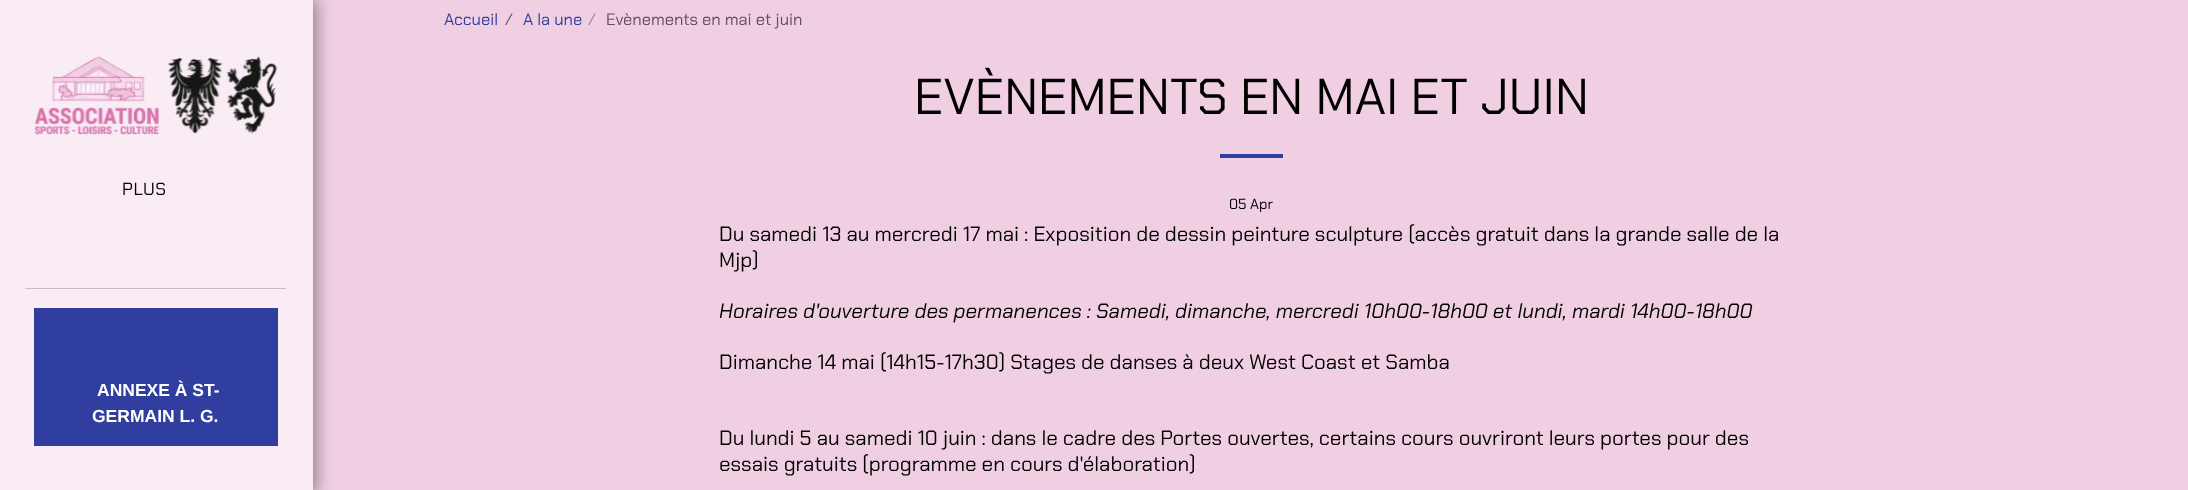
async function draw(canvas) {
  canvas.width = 2188;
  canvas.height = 490;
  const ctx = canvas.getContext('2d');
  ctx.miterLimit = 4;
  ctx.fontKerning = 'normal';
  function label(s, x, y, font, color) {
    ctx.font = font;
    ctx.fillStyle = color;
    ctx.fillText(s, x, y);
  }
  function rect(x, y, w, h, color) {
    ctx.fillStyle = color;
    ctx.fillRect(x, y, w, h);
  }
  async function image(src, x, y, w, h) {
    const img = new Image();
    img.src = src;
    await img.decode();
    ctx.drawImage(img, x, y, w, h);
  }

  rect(0, 0, 2188, 490, '#f1cfe3');
  ctx.fillStyle = '#00000059';
  ctx.filter = 'blur(7.5px)';
  ctx.beginPath();
  ctx.rect(0, -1, 318, 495);
  ctx.fill();
  ctx.filter = 'none';
  rect(0, 0, 313, 490, '#f9ecf4');
  await image('assets/img1.png', 34, 56, 243, 79);
  ctx.letterSpacing = '0.5px';
  label('PLUS', 122, 195, '17.5px Chakra Petch', '#000');
  rect(25, 288, 261, 1, '#c7bdc3');
  rect(34, 308, 244, 138, '#303f9f');
  ctx.letterSpacing = '0px';
  label('ANNEXE À ST-', 97, 396, 'bold 17.5px Liberation Sans', '#fff');
  label('GERMAIN L. G.', 92, 422, 'bold 17.5px Liberation Sans', '#fff');
  label('Accueil', 444, 25, '16.5px Chakra Petch', '#303f9f');
  label('/', 505, 25, '16.5px Chakra Petch', '#60535b');
  label('A la une', 523, 25, '16.5px Chakra Petch', '#303f9f');
  label('/', 588, 25, '16.5px Chakra Petch', '#9a8491');
  label('Evènements en mai et juin', 606, 25, '16.5px Chakra Petch', '#60535b');
  label('EVÈNEMENTS EN MAI ET JUIN', 914, 114, '50.4px Chakra Petch', '#000');
  rect(1220, 154, 63, 4, '#303f9f');
  label('05 Apr', 1229, 209, '14.5px Chakra Petch', '#000');
  label('Du samedi 13 au mercredi 17 mai : Exposition de dessin peinture sculpture (accès gratuit dans la grande salle de la', 719, 241, '20.62px Chakra Petch', '#000');
  label('Mjp)', 719, 267, '20.62px Chakra Petch', '#000');
  label('Horaires d\'ouverture des permanences : Samedi, dimanche, mercredi 10h00-18h00 et lundi, mardi 14h00-18h00', 719, 318, 'italic 20.62px Chakra Petch', '#000');
  label('Dimanche 14 mai (14h15-17h30) Stages de danses à deux West Coast et Samba', 719, 369, '20.62px Chakra Petch', '#000');
  label('Du lundi 5 au samedi 10 juin : dans le cadre des Portes ouvertes, certains cours ouvriront leurs portes pour des', 719, 445, '20.62px Chakra Petch', '#000');
  label('essais gratuits (programme en cours d\'élaboration)', 719, 471, '20.62px Chakra Petch', '#000');
}

draw(document.querySelector('canvas'));
